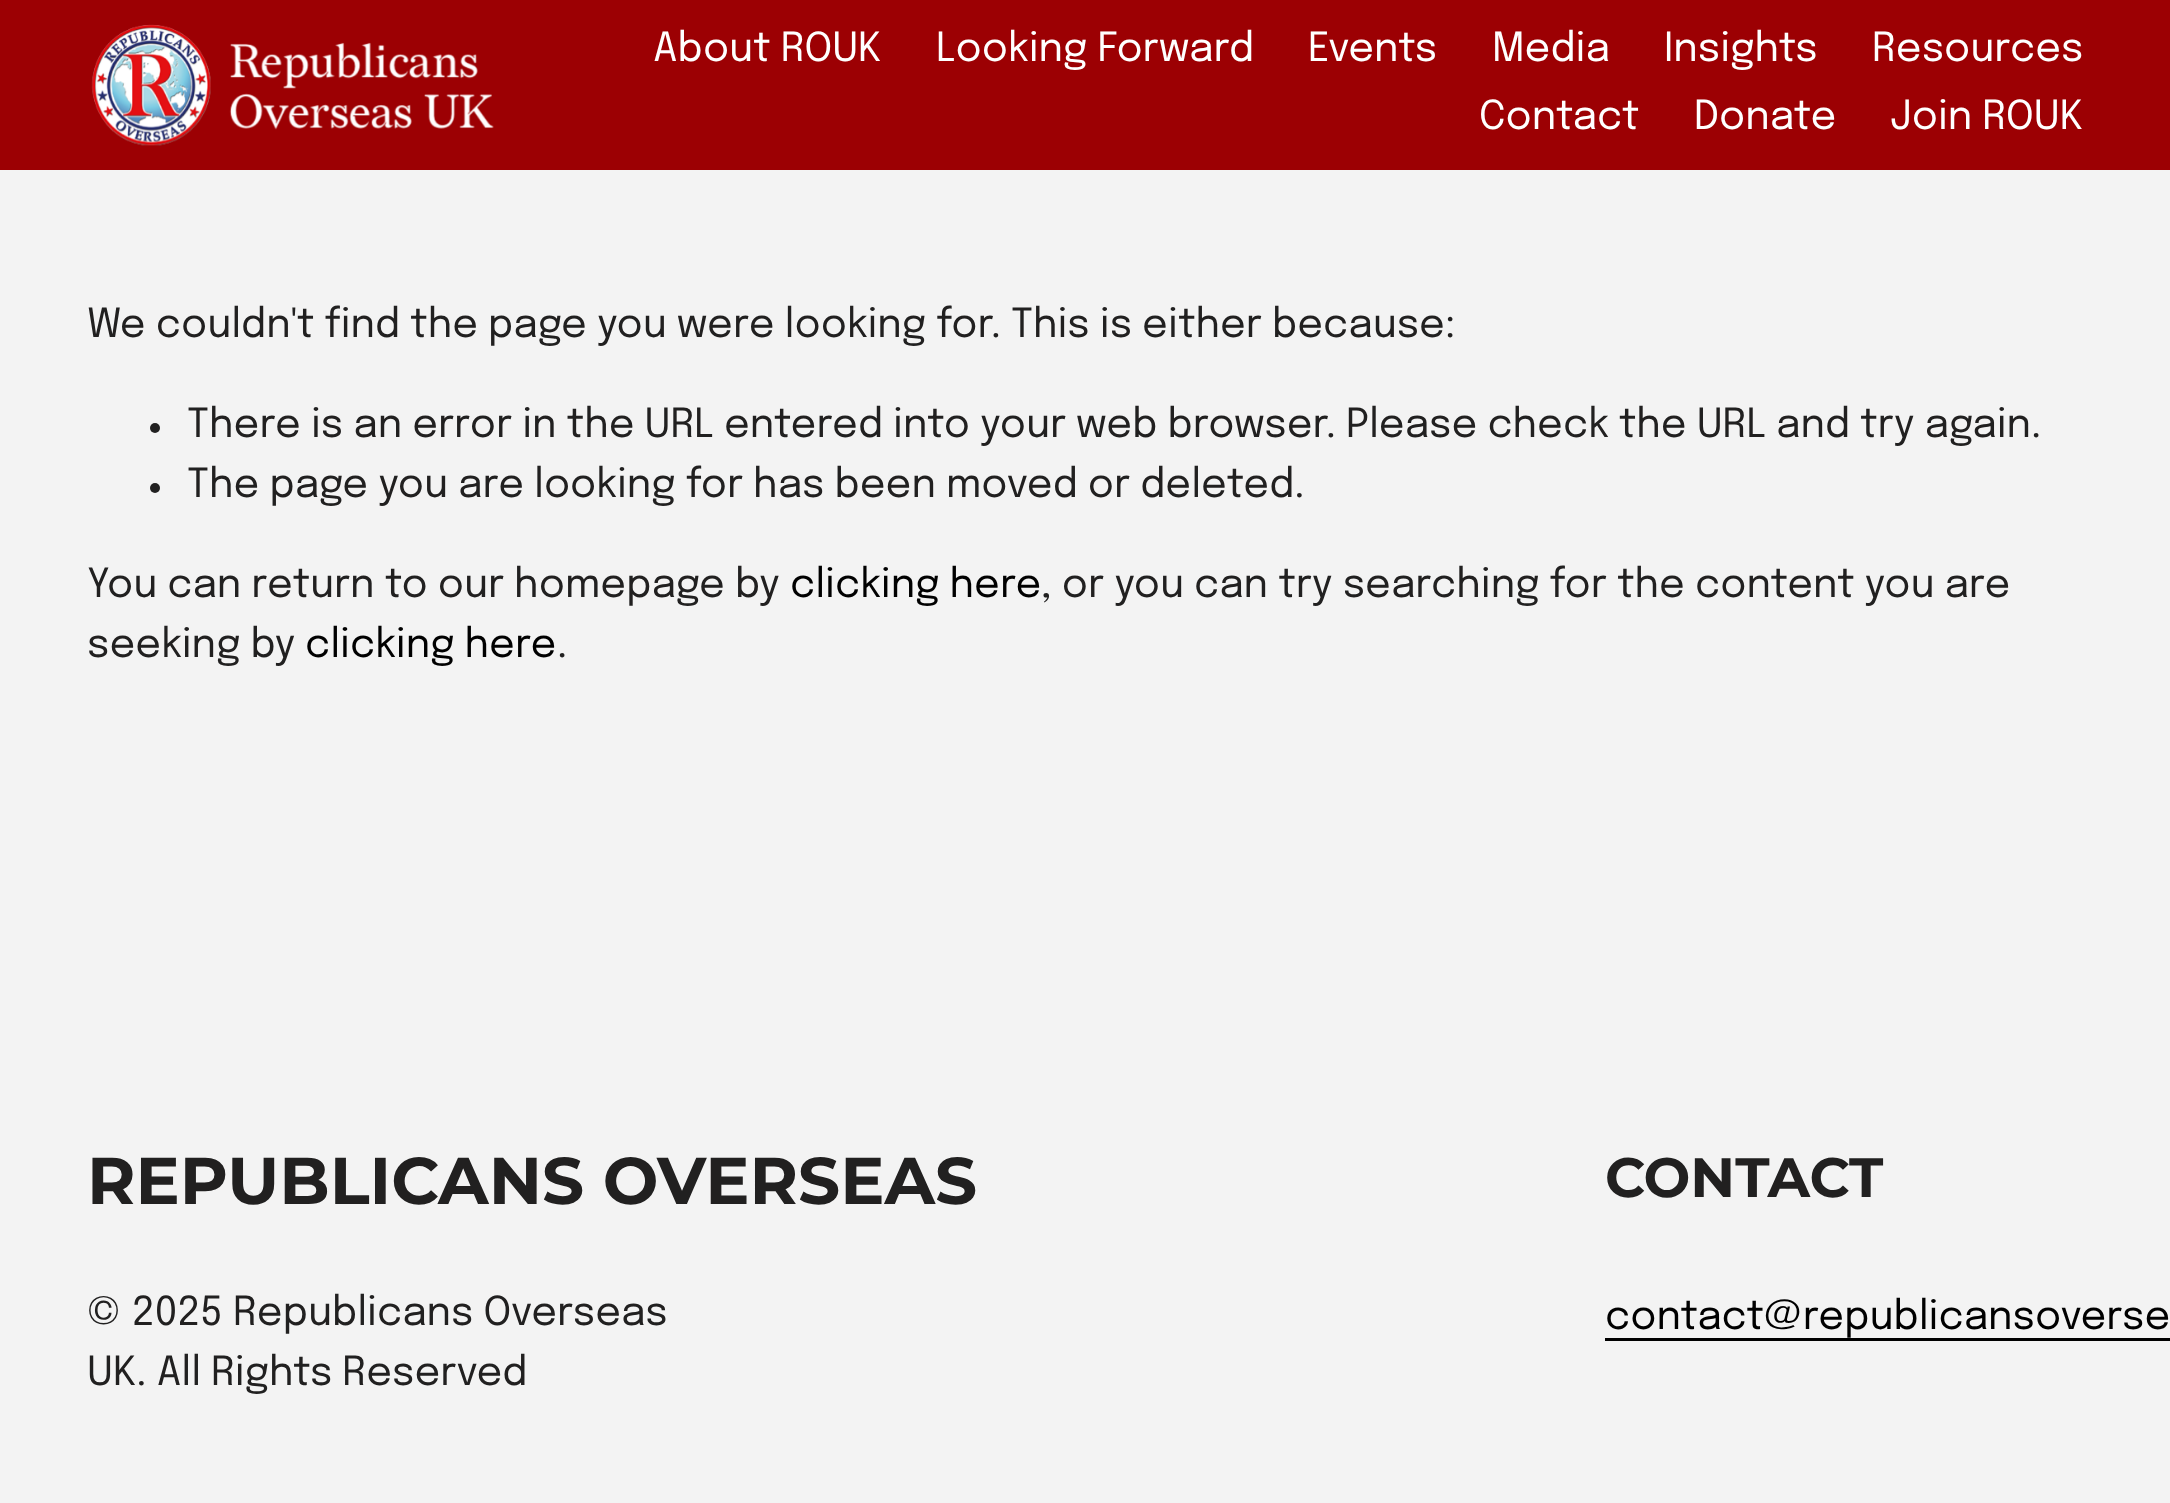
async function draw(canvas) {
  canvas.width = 2170;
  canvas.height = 1503;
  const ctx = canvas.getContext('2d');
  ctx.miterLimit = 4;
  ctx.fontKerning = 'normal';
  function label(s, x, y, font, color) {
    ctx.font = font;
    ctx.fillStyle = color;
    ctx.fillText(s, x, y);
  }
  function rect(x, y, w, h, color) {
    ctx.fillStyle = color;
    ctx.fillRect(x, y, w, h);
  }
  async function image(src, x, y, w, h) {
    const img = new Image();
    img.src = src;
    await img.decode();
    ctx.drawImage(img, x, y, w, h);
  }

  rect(0, 0, 2170, 1503, '#f3f3f3');
  rect(0, 0, 2170, 170, '#9c0003');
  await image('assets/img1.png', 91, 24, 403, 122);
  label('About ROUK', 653, 61, '40px Epilogue', '#fff');
  label('Looking Forward', 936, 61, '40px Epilogue', '#fff');
  label('Events', 1308, 61, '40px Epilogue', '#fff');
  label('Media', 1492, 61, '40px Epilogue', '#fff');
  label('Insights', 1664, 61, '40px Epilogue', '#fff');
  label('Resources', 1872, 61, '40px Epilogue', '#fff');
  label('Contact', 1479, 129, '40px Epilogue', '#fff');
  label('Donate', 1694, 129, '40px Epilogue', '#fff');
  label('Join ROUK', 1890, 129, '40px Epilogue', '#fff');
  label('We couldn\'t find the page you were looking for. This is either because:', 87, 337, '40px Epilogue', '#212020');
  ctx.beginPath();
  ctx.arc(155, 428, 5, 0, 2 * Math.PI);
  ctx.fill();
  label('There is an error in the URL entered into your web browser. Please check the URL and try again.', 187, 437, '40px Epilogue', '#212020');
  ctx.beginPath();
  ctx.arc(155, 488, 5, 0, 2 * Math.PI);
  ctx.fill();
  label('The page you are looking for has been moved or deleted.', 187, 497, '40px Epilogue', '#212020');
  label('You can return to our homepage by', 87, 597, '40px Epilogue', '#212020');
  label('clicking here', 790, 597, '40px Epilogue', '#000');
  label(', or you can try searching for the content you are', 1041, 597, '40px Epilogue', '#212020');
  label('seeking by', 87, 657, '40px Epilogue', '#212020');
  label('clicking here', 305, 657, '40px Epilogue', '#000');
  label('.', 557, 657, '40px Epilogue', '#212020');
  label('REPUBLICANS OVERSEAS', 87, 1204, '100 66px Montserrat', '#212020');
  label('CONTACT', 1605, 1197, '100 55.5px Montserrat', '#212020');
  label('contact@republicansoverse', 1605, 1329, '40px Epilogue', '#000');
  rect(1605, 1338, 565, 3, '#000');
  label('© 2025 Republicans Overseas', 87, 1325, '40px Epilogue', '#212020');
  label('UK. All Rights Reserved', 87, 1385, '40px Epilogue', '#212020');
}

draw(document.querySelector('canvas'));
